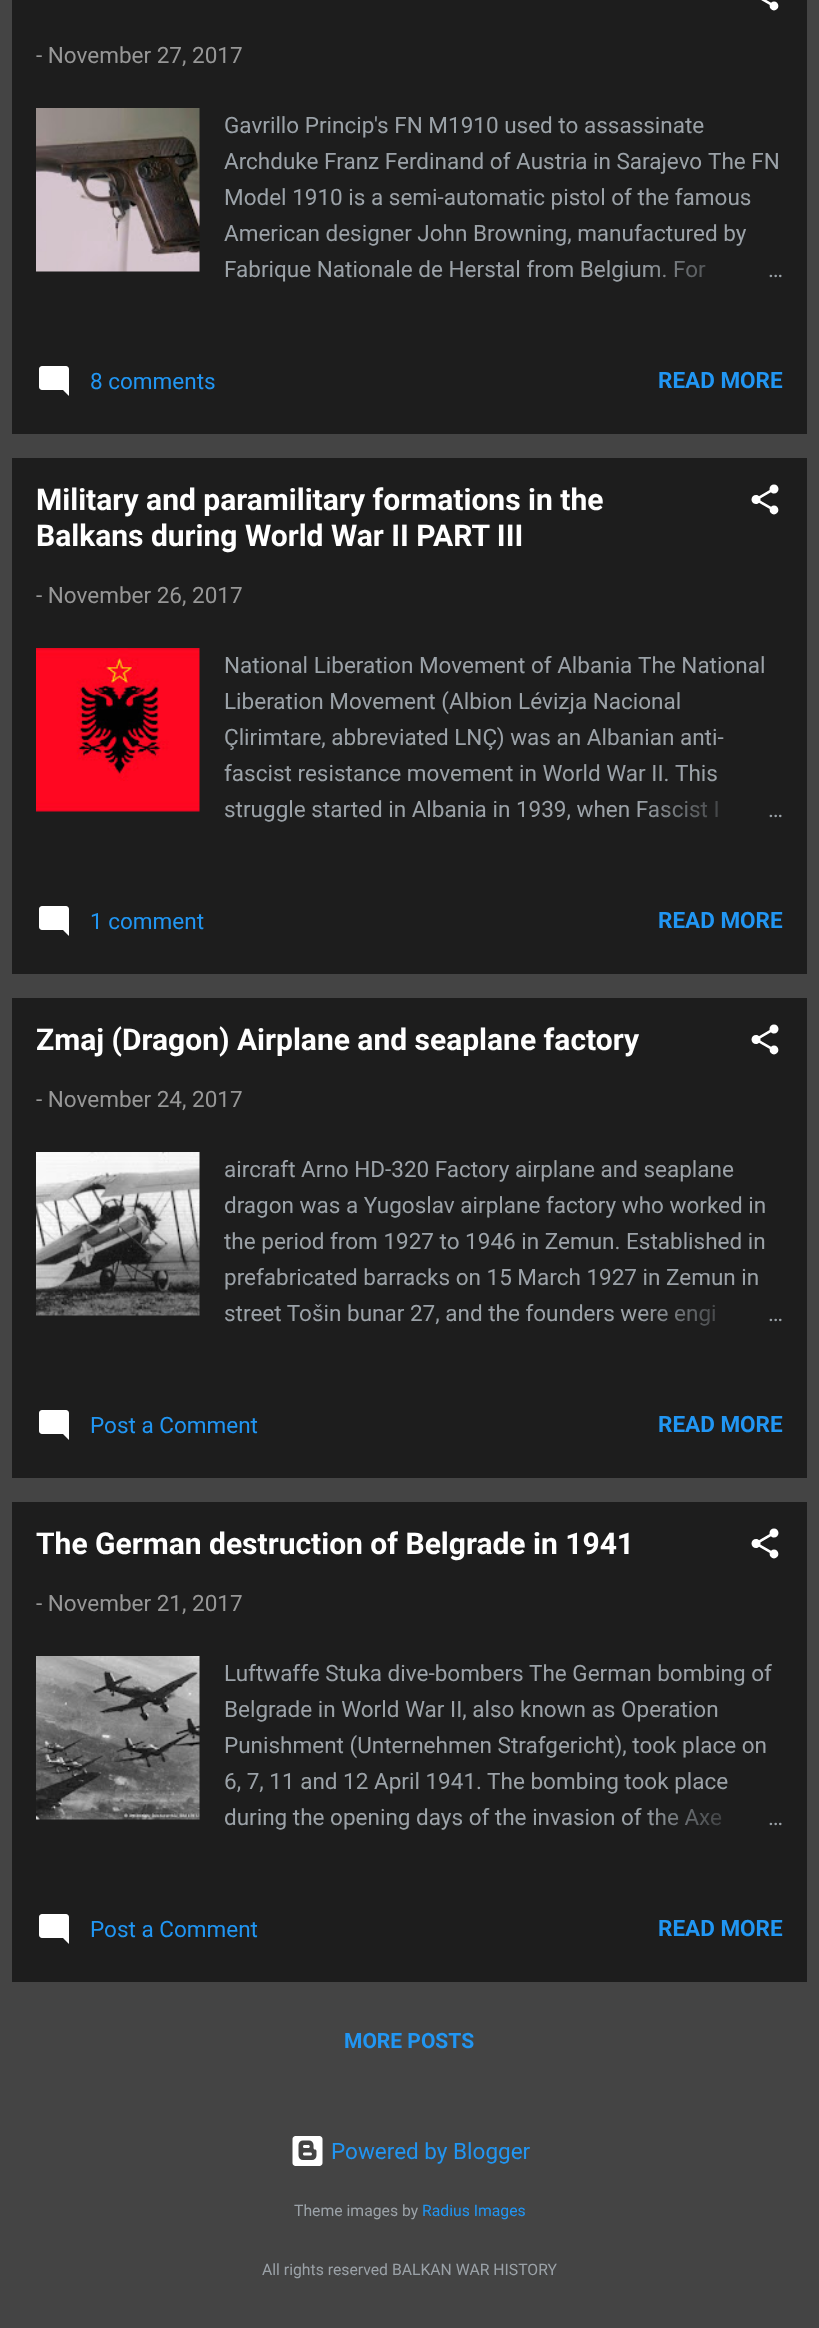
async function draw(canvas) {
  canvas.width = 819;
  canvas.height = 2328;
  const ctx = canvas.getContext('2d');
  ctx.miterLimit = 4;
  ctx.fontKerning = 'normal';
  function label(s, x, y, font, color) {
    ctx.font = font;
    ctx.fillStyle = color;
    ctx.fillText(s, x, y);
  }
  function rect(x, y, w, h, color) {
    ctx.fillStyle = color;
    ctx.fillRect(x, y, w, h);
  }
  async function image(src, x, y, w, h) {
    const img = new Image();
    img.src = src;
    await img.decode();
    ctx.drawImage(img, x, y, w, h);
  }
  let gradient;

  rect(0, 0, 819, 2328, '#444');
  rect(12, 0, 795, 434, '#1d1d1d');
  await image('assets/img1.png', 761, 0, 18, 11);
  label('- November 27, 2017', 36, 63, '22.5px Roboto', '#979797');
  await image('assets/img2.png', 36, 108, 164, 164);
  label('Gavrillo Princip\'s FN M1910 used to assassinate', 224, 133, '22.5px Roboto', '#9ba2a8');
  label('Archduke Franz Ferdinand of Austria in Sarajevo', 224, 169, '22.5px Roboto', '#9ba2a8');
  label('The FN', 708, 169, '22.5px Roboto', '#9ba2a8');
  label('Model 1910 is a semi-automatic pistol of the famous', 224, 205, '22.5px Roboto', '#9ba2a8');
  label('American designer John Browning, manufactured by', 224, 241, '22.5px Roboto', '#9ba2a8');
  label('Fabrique Nationale de Herstal from Belgium. For', 224, 277, '22.5px Roboto', '#9ba2a8');
  gradient = ctx.createLinearGradient(783, 270, 639, 270);
  gradient.addColorStop(0, '#1d1d1d');
  gradient.addColorStop(0.2, '#1d1d1d');
  gradient.addColorStop(1, '#1d1d1d00');
  ctx.fillStyle = gradient;
  ctx.fillRect(644, 261, 62, 17);
  label('…', 768, 277, '22.5px Roboto', '#9ba2a8');
  await image('assets/img3.png', 39, 366, 30, 30);
  label('8 comments', 90, 389, '22.5px Roboto', '#2196f3');
  label('READ MORE', 658, 388, 'bold 22.5px Roboto', '#2196f3');
  rect(12, 458, 795, 516, '#1d1d1d');
  label('Military and paramilitary formations in the', 36, 510, 'bold 30px Roboto', '#fff');
  label('Balkans during World War II PART III', 36, 546, 'bold 30px Roboto', '#fff');
  await image('assets/img4.png', 751, 484, 28, 31);
  label('- November 26, 2017', 36, 603, '22.5px Roboto', '#979797');
  await image('assets/img5.png', 36, 648, 164, 164);
  label('National Liberation Movement of Albania', 224, 673, '22.5px Roboto', '#9ba2a8');
  label('The National', 638, 673, '22.5px Roboto', '#9ba2a8');
  label('Liberation Movement (Albion Lévizja Nacional', 224, 709, '22.5px Roboto', '#9ba2a8');
  label('Çlirimtare, abbreviated LNÇ) was an Albanian anti-', 224, 745, '22.5px Roboto', '#9ba2a8');
  label('fascist resistance movement in World War II.', 224, 781, '22.5px Roboto', '#9ba2a8');
  label('This', 675, 781, '22.5px Roboto', '#9ba2a8');
  label('struggle started in Albania in 1939, when Fascist I', 224, 817, '22.5px Roboto', '#9ba2a8');
  gradient = ctx.createLinearGradient(783, 810, 639, 810);
  gradient.addColorStop(0, '#1d1d1d');
  gradient.addColorStop(0.2, '#1d1d1d');
  gradient.addColorStop(1, '#1d1d1d00');
  ctx.fillStyle = gradient;
  ctx.fillRect(641, 800, 77, 18);
  label('…', 768, 817, '22.5px Roboto', '#9ba2a8');
  await image('assets/img3.png', 39, 906, 30, 30);
  label('1 comment', 90, 929, '22.5px Roboto', '#2196f3');
  label('READ MORE', 658, 928, 'bold 22.5px Roboto', '#2196f3');
  rect(12, 998, 795, 480, '#1d1d1d');
  label('Zmaj (Dragon) Airplane and seaplane factory', 36, 1050, 'bold 30px Roboto', '#fff');
  await image('assets/img6.png', 751, 1024, 28, 31);
  label('- November 24, 2017', 36, 1107, '22.5px Roboto', '#979797');
  await image('assets/img7.png', 36, 1152, 164, 164);
  label('aircraft Arno HD-320 Factory airplane and seaplane', 224, 1177, '22.5px Roboto', '#9ba2a8');
  label('dragon was a Yugoslav airplane factory who worked in', 224, 1213, '22.5px Roboto', '#9ba2a8');
  label('the period from 1927 to 1946 in Zemun. Established in', 224, 1249, '22.5px Roboto', '#9ba2a8');
  label('prefabricated barracks on 15 March 1927 in Zemun in', 224, 1285, '22.5px Roboto', '#9ba2a8');
  label('street Tošin bunar 27, and the founders were engi', 224, 1321, '22.5px Roboto', '#9ba2a8');
  gradient = ctx.createLinearGradient(783, 1314, 639, 1314);
  gradient.addColorStop(0, '#1d1d1d');
  gradient.addColorStop(0.2, '#1d1d1d');
  gradient.addColorStop(1, '#1d1d1d00');
  ctx.fillStyle = gradient;
  ctx.fillRect(641, 1304, 75, 22);
  label('…', 768, 1321, '22.5px Roboto', '#9ba2a8');
  await image('assets/img3.png', 39, 1410, 30, 30);
  label('Post a Comment', 90, 1433, '22.5px Roboto', '#2196f3');
  label('READ MORE', 658, 1432, 'bold 22.5px Roboto', '#2196f3');
  rect(12, 1502, 795, 480, '#1d1d1d');
  label('The German destruction of Belgrade in 1941', 36, 1554, 'bold 30px Roboto', '#fff');
  await image('assets/img6.png', 751, 1528, 28, 31);
  label('- November 21, 2017', 36, 1611, '22.5px Roboto', '#979797');
  await image('assets/img8.png', 36, 1656, 164, 164);
  label('Luftwaffe Stuka dive-bombers', 224, 1681, '22.5px Roboto', '#9ba2a8');
  label('The German bombing of', 529, 1681, '22.5px Roboto', '#9ba2a8');
  label('Belgrade in World War II, also known as Operation', 224, 1717, '22.5px Roboto', '#9ba2a8');
  label('Punishment (Unternehmen Strafgericht), took place on', 224, 1753, '22.5px Roboto', '#9ba2a8');
  label('6, 7, 11 and 12 April 1941. The bombing took place', 224, 1789, '22.5px Roboto', '#9ba2a8');
  label('during the opening days of the invasion of the Axe', 224, 1825, '22.5px Roboto', '#9ba2a8');
  gradient = ctx.createLinearGradient(783, 1818, 639, 1818);
  gradient.addColorStop(0, '#1d1d1d');
  gradient.addColorStop(0.2, '#1d1d1d');
  gradient.addColorStop(1, '#1d1d1d00');
  ctx.fillStyle = gradient;
  ctx.fillRect(641, 1808, 81, 18);
  label('…', 768, 1825, '22.5px Roboto', '#9ba2a8');
  await image('assets/img3.png', 39, 1914, 30, 30);
  label('Post a Comment', 90, 1937, '22.5px Roboto', '#2196f3');
  label('READ MORE', 658, 1936, 'bold 22.5px Roboto', '#2196f3');
  label('MORE POSTS', 344, 2048, 'bold 21px Roboto', '#2196f3');
  await image('assets/img9.png', 292, 2136, 31, 30);
  label('Powered by Blogger', 331, 2159, '22.5px Roboto', '#2196f3');
  label('Theme images by', 294, 2216, '15.75px Roboto', '#9ba2a8');
  label('Radius Images', 422, 2216, '15.75px Roboto', '#2196f3');
  label('All rights reserved BALKAN WAR HISTORY', 262, 2275, '15.75px Roboto', '#9ba2a8');
}

draw(document.querySelector('canvas'));
